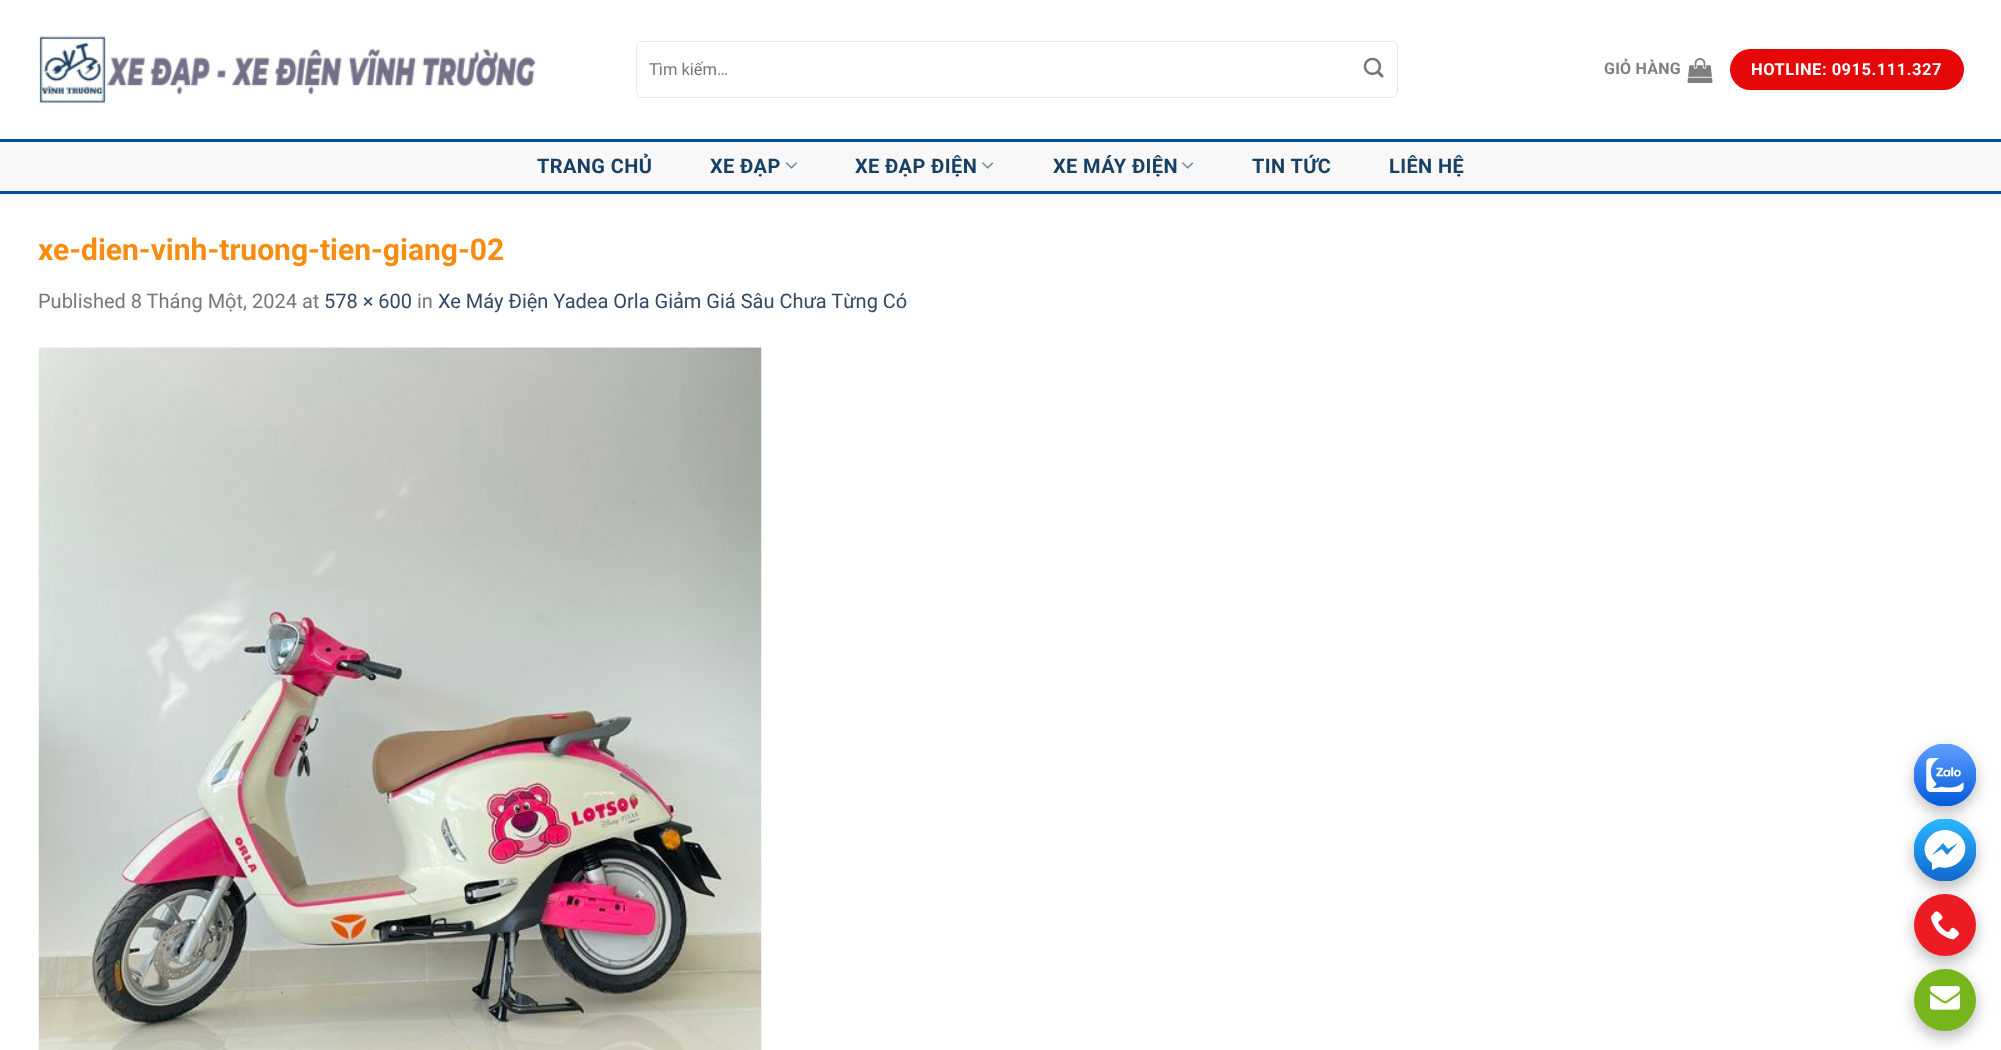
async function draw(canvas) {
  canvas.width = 2001;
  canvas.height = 1050;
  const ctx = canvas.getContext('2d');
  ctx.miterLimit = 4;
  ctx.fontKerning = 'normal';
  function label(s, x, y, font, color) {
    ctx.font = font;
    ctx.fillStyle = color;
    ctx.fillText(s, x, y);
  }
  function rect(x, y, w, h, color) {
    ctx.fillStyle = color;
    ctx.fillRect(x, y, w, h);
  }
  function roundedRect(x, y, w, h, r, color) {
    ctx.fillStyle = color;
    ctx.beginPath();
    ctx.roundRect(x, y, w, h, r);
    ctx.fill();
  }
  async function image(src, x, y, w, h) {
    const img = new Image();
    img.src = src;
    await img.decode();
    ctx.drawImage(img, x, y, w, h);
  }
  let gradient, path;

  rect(0, 0, 2001, 1050, '#fff');
  await image('assets/img1.png', 39, 35, 497, 70);
  ctx.beginPath();
  ctx.roundRect(636.5, 41.5, 761, 56, 5.5);
  ctx.strokeStyle = '#e8e8e8';
  ctx.stroke();
  label('Tìm kiếm…', 649, 75, '16.5px Roboto', '#777');
  await image('assets/img2.png', 1363, 57, 21, 21);
  ctx.letterSpacing = '0.25px';
  label('GIỎ HÀNG', 1604, 74, 'bold 16px Roboto', '#807f80');
  await image('assets/img3.png', 1687, 58, 26, 25);
  roundedRect(1730, 49, 234, 41, 20.5, '#e60808');
  ctx.strokeStyle = '#0000000d';
  ctx.strokeRect(1730.5, 49.5, 233, 40);
  ctx.letterSpacing = '0.5px';
  label('HOTLINE: 0915.111.327', 1751, 75, 'bold 16.5px Roboto', '#fff');
  rect(0, 142, 2001, 49, '#f7f8f7');
  rect(0, 139, 2001, 3, '#004da6');
  rect(0, 191, 2001, 3, '#004da6');
  ctx.letterSpacing = '0.4px';
  label('TRANG CHỦ', 537, 173, 'bold 20px Roboto', '#184064');
  label('XE ĐẠP', 710, 173, 'bold 20px Roboto', '#184064');
  await image('assets/img4.png', 785, 162, 12, 7);
  label('XE ĐẠP ĐIỆN', 855, 173, 'bold 20px Roboto', '#184064');
  await image('assets/img5.png', 982, 162, 12, 7);
  label('XE MÁY ĐIỆN', 1053, 173, 'bold 20px Roboto', '#184064');
  await image('assets/img5.png', 1182, 162, 12, 7);
  label('TIN TỨC', 1252, 173, 'bold 20px Roboto', '#184064');
  label('LIÊN HỆ', 1389, 173, 'bold 20px Roboto', '#184064');
  ctx.letterSpacing = '0px';
  label('xe-dien-vinh-truong-tien-giang-02', 38, 260, 'bold 30px Roboto', '#f88c11');
  label('Published 8 Tháng Một, 2024 at', 38, 308, '20px Roboto', '#777');
  label('578 × 600', 324, 308, '20px Roboto', '#334862');
  label('in', 417, 308, '20px Roboto', '#777');
  label('Xe Máy Điện Yadea Orla Giảm Giá Sâu Chưa Từng Có', 438, 308, '20px Roboto', '#334862');
  await image('assets/img6.png', 38, 347, 724, 703);
  ctx.fillStyle = '#00000021';
  ctx.filter = 'blur(9.5px)';
  ctx.beginPath();
  ctx.roundRect(1914, 749, 62, 62, 31);
  ctx.fill();
  ctx.filter = 'none';
  ctx.fillStyle = '#00000026';
  ctx.filter = 'blur(6px)';
  ctx.beginPath();
  ctx.roundRect(1914, 750, 62, 63, 31);
  ctx.fill();
  ctx.filter = 'none';
  await image('assets/img7.png', 1914, 744, 62, 62);
  ctx.fillStyle = '#00000021';
  ctx.filter = 'blur(9.5px)';
  ctx.beginPath();
  ctx.roundRect(1914, 824, 62, 62, 31);
  ctx.fill();
  ctx.filter = 'none';
  ctx.fillStyle = '#00000026';
  ctx.filter = 'blur(6px)';
  ctx.beginPath();
  ctx.roundRect(1914, 825, 62, 63, 31);
  ctx.fill();
  ctx.filter = 'none';
  ctx.save();
  ctx.beginPath();
  ctx.rect(1914, 819, 62, 62);
  ctx.clip();
  gradient = ctx.createLinearGradient(1944, 880, 1944, 819);
  gradient.addColorStop(0, '#1168cf');
  gradient.addColorStop(1, '#2cb7ff');
  ctx.fillStyle = gradient;
  ctx.beginPath();
  ctx.arc(1945, 850, 31.5, 0, 2 * Math.PI);
  ctx.fill();
  ctx.restore();
  ctx.fillStyle = '#fff';
  path = new Path2D('M1945 830C1927 830 1917 852 1932 863V870L1939 867C1958 872 1975 850 1959 835C1955 832 1950 830 1945 830ZM1947 855L1942 849L1932 855L1943 843L1948 849L1958 843Z');
  ctx.fill(path, 'evenodd');
  ctx.fillStyle = '#00000021';
  ctx.filter = 'blur(9.5px)';
  ctx.beginPath();
  ctx.roundRect(1914, 899, 62, 62, 31);
  ctx.fill();
  ctx.filter = 'none';
  ctx.fillStyle = '#00000026';
  ctx.filter = 'blur(6px)';
  ctx.beginPath();
  ctx.roundRect(1914, 900, 62, 63, 31);
  ctx.fill();
  ctx.filter = 'none';
  ctx.fillStyle = '#ed1c24';
  ctx.beginPath();
  ctx.arc(1945, 925, 31, 0, 2 * Math.PI);
  ctx.fill();
  await image('assets/img8.png', 1931, 911, 28, 29);
  ctx.fillStyle = '#00000021';
  ctx.filter = 'blur(9.5px)';
  ctx.beginPath();
  ctx.roundRect(1914, 974, 62, 62, 31);
  ctx.fill();
  ctx.filter = 'none';
  ctx.fillStyle = '#00000026';
  ctx.filter = 'blur(6px)';
  ctx.beginPath();
  ctx.roundRect(1914, 975, 62, 63, 31);
  ctx.fill();
  ctx.filter = 'none';
  ctx.fillStyle = '#76b51b';
  ctx.beginPath();
  ctx.arc(1945, 1000, 31, 0, 2 * Math.PI);
  ctx.fill();
  await image('assets/img9.png', 1930, 986, 30, 24);
}

draw(document.querySelector('canvas'));
